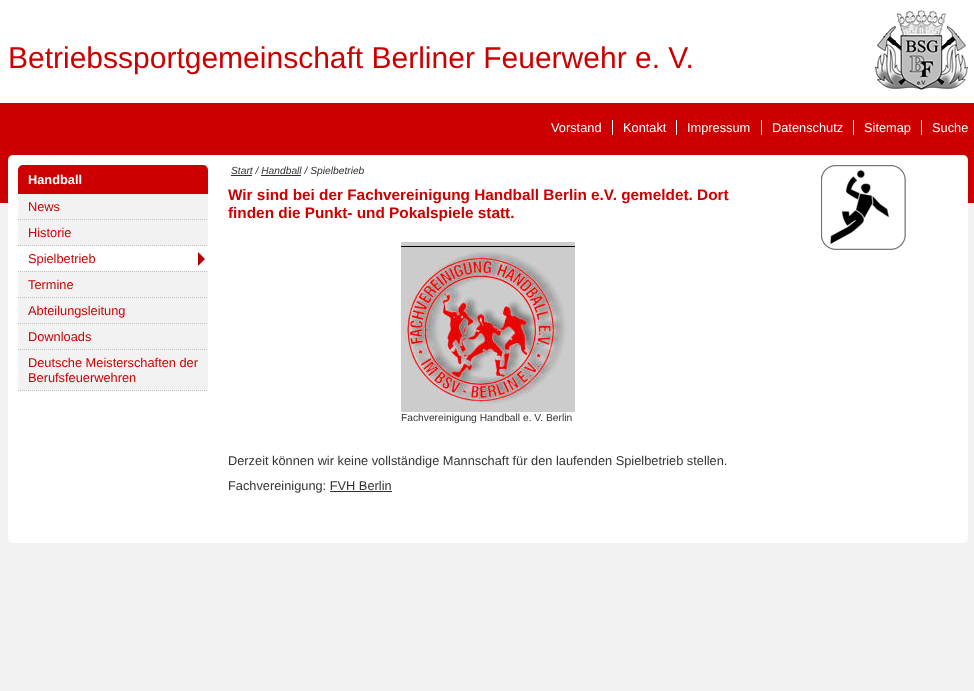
async function draw(canvas) {
  canvas.width = 974;
  canvas.height = 691;
  const ctx = canvas.getContext('2d');
  ctx.miterLimit = 4;
  ctx.fontKerning = 'normal';
  function label(s, x, y, font, color) {
    ctx.font = font;
    ctx.fillStyle = color;
    ctx.fillText(s, x, y);
  }
  function rect(x, y, w, h, color) {
    ctx.fillStyle = color;
    ctx.fillRect(x, y, w, h);
  }
  function roundedRect(x, y, w, h, r, color) {
    ctx.fillStyle = color;
    ctx.beginPath();
    ctx.roundRect(x, y, w, h, r);
    ctx.fill();
  }
  async function image(src, x, y, w, h) {
    const img = new Image();
    img.src = src;
    await img.decode();
    ctx.drawImage(img, x, y, w, h);
  }
  let path;

  rect(0, 0, 974, 691, '#f2f2f2');
  await image('assets/img1.png', 0, 0, 974, 203);
  label('Betriebssportgemeinschaft Berliner Feuerwehr e. V.', 8, 68, '30px Liberation Sans', '#c00');
  await image('assets/img2.png', 875, 10, 93, 80);
  label('Vorstand', 551, 132, '12.8px Liberation Sans', '#fff');
  rect(612, 120, 1, 15, '#fff');
  label('Kontakt', 623, 132, '12.8px Liberation Sans', '#fff');
  rect(676, 120, 1, 15, '#fff');
  label('Impressum', 687, 132, '12.8px Liberation Sans', '#fff');
  rect(761, 120, 1, 15, '#fff');
  label('Datenschutz', 772, 132, '12.8px Liberation Sans', '#fff');
  rect(853, 120, 1, 15, '#fff');
  label('Sitemap', 864, 132, '12.8px Liberation Sans', '#fff');
  rect(921, 120, 1, 15, '#fff');
  label('Suche', 932, 132, '12.8px Liberation Sans', '#fff');
  roundedRect(8, 155, 960, 388, 5, '#fff');
  ctx.fillStyle = '#c00';
  ctx.beginPath();
  ctx.roundRect(18, 165, 190, 29, [5, 5, 0, 0]);
  ctx.fill();
  label('Handball', 28, 184, 'bold 12.8px Liberation Sans', '#fff');
  rect(18, 194, 190, 197, '#f2f2f2');
  path = new Path2D('M18 219.5H208');
  ctx.strokeStyle = '#c0c0c0';
  ctx.setLineDash([1, 1]);
  ctx.stroke(path);
  label('News', 28, 211, '12.8px Liberation Sans', '#c00');
  path = new Path2D('M18 245.5H208');
  ctx.stroke(path);
  label('Historie', 28, 237, '12.8px Liberation Sans', '#c00');
  path = new Path2D('M18 271.5H208');
  ctx.stroke(path);
  rect(18, 246, 190, 25, '#fff');
  await image('assets/img3.png', 198, 252, 7, 14);
  label('Spielbetrieb', 28, 263, '12.8px Liberation Sans', '#c00');
  path = new Path2D('M18 297.5H208');
  ctx.stroke(path);
  label('Termine', 28, 289, '12.8px Liberation Sans', '#c00');
  path = new Path2D('M18 323.5H208');
  ctx.stroke(path);
  label('Abteilungsleitung', 28, 315, '12.8px Liberation Sans', '#c00');
  path = new Path2D('M18 349.5H208');
  ctx.stroke(path);
  label('Downloads', 28, 341, '12.8px Liberation Sans', '#c00');
  path = new Path2D('M18 390.5H208');
  ctx.stroke(path);
  label('Deutsche Meisterschaften der', 28, 367, '12.8px Liberation Sans', '#c00');
  label('Berufsfeuerwehren', 28, 382, '12.8px Liberation Sans', '#c00');
  rect(231, 175, 21, 1, '#333');
  label('Start / Handball / Spielbetrieb', 231, 174, 'italic 10.25px Liberation Sans', '#333');
  rect(261, 175, 40, 1, '#333');
  label('Wir sind bei der Fachvereinigung Handball Berlin e.V. gemeldet. Dort', 228, 200, 'bold 15.35px Liberation Sans', '#c00');
  label('finden die Punkt- und Pokalspiele statt.', 228, 218, 'bold 15.35px Liberation Sans', '#c00');
  await image('assets/img4.png', 401, 242, 174, 170);
  label('Fachvereinigung Handball e. V. Berlin', 401, 421, '10.25px Liberation Sans', '#333');
  label('Derzeit können wir keine vollständige Mannschaft für den laufenden Spielbetrieb stellen.', 228, 465, '12.8px Liberation Sans', '#333');
  label('Fachvereinigung: FVH Berlin', 228, 490, '12.8px Liberation Sans', '#333');
  rect(330, 491, 62, 1, '#333');
  await image('assets/img5.png', 821, 165, 85, 85);
}

draw(document.querySelector('canvas'));
